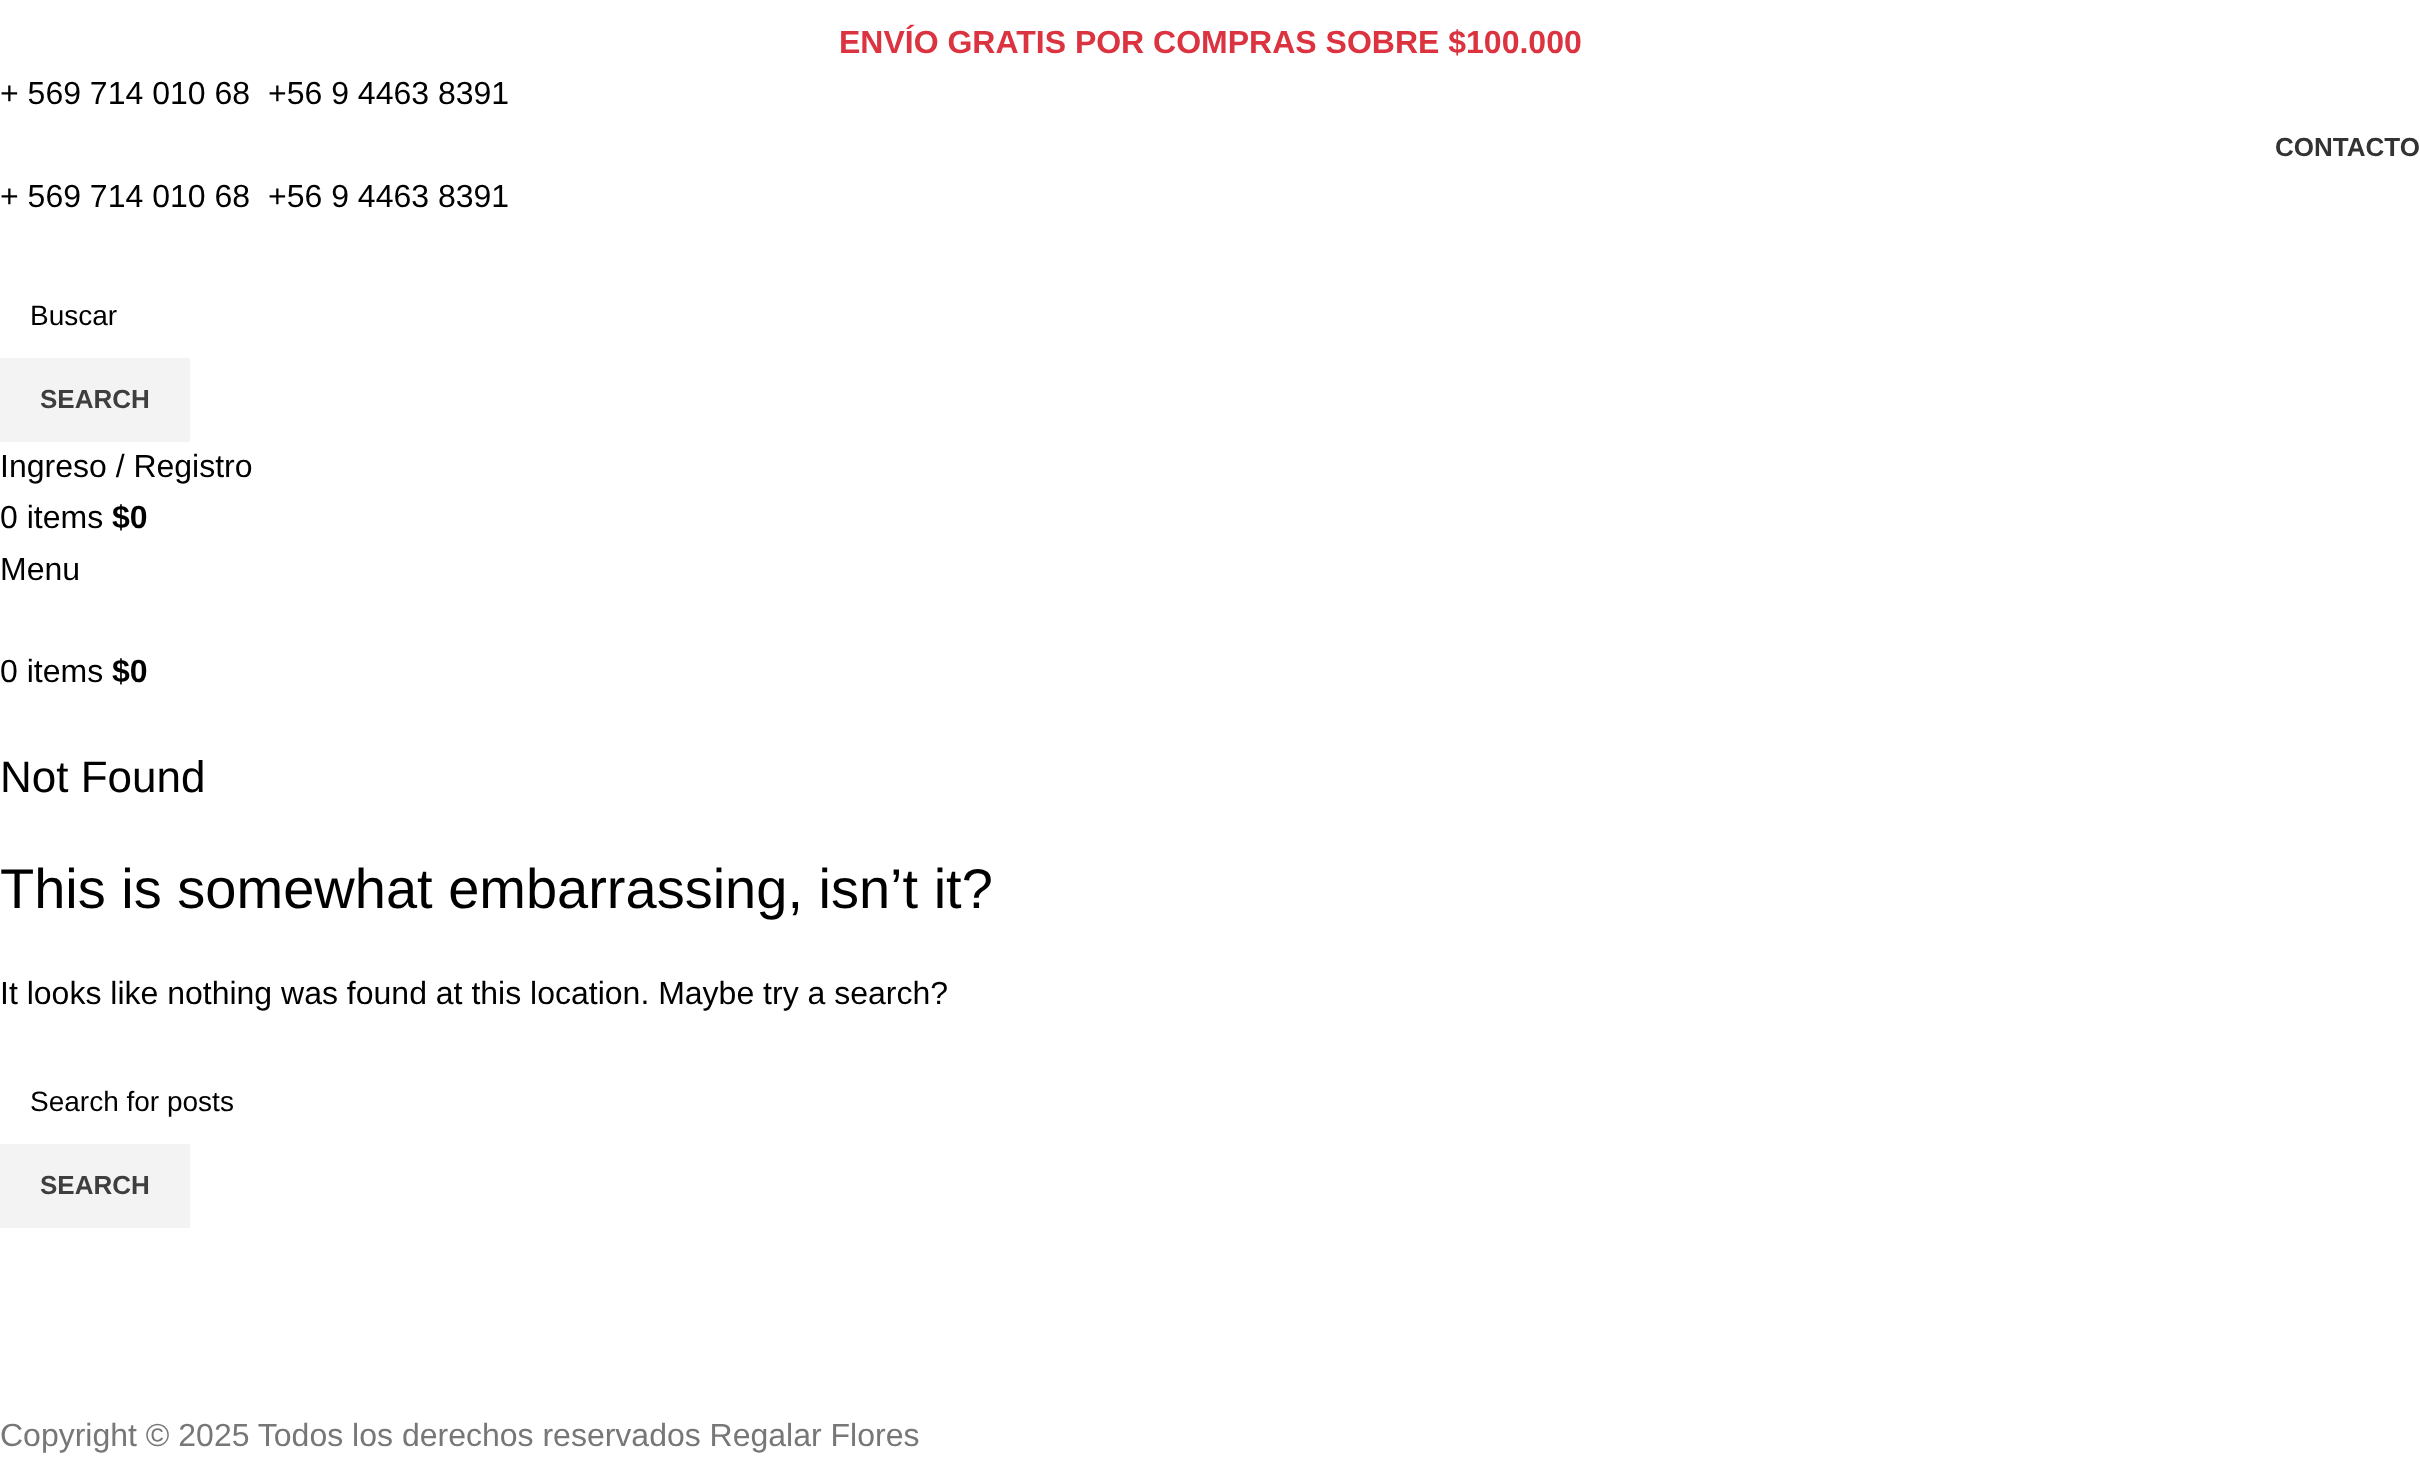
async function draw(canvas) {
  canvas.width = 2420;
  canvas.height = 1483;
  const ctx = canvas.getContext('2d');
  ctx.miterLimit = 4;
  ctx.fontKerning = 'normal';
  function label(s, x, y, font, color) {
    ctx.font = font;
    ctx.fillStyle = color;
    ctx.fillText(s, x, y);
  }
  function rect(x, y, w, h, color) {
    ctx.fillStyle = color;
    ctx.fillRect(x, y, w, h);
  }

  rect(0, 0, 2420, 1483, '#fff');
  label('ENVÍO GRATIS POR COMPRAS SOBRE $100.000', 839, 53, 'bold 32px Liberation Sans', '#db3340');
  label('+ 569 714 010 68', 0, 104, '32px Liberation Sans', '#000');
  label('+56 9 4463 8391', 268, 104, '32px Liberation Sans', '#000');
  label('CONTACTO', 2275, 156, 'bold 26px Liberation Sans', '#333');
  label('+ 569 714 010 68', 0, 207, '32px Liberation Sans', '#000');
  label('+56 9 4463 8391', 268, 207, '32px Liberation Sans', '#000');
  label('Buscar', 30, 325, '28px Liberation Sans', '#000');
  rect(0, 358, 190, 84, '#f3f3f3');
  label('SEARCH', 40, 408, 'bold 26px Liberation Sans', '#3e3e3e');
  label('Ingreso / Registro', 0, 477, '32px Liberation Sans', '#000');
  label('0 items', 0, 528, '32px Liberation Sans', '#000');
  label('$0', 112, 528, 'bold 32px Liberation Sans', '#000');
  label('Menu', 0, 580, '32px Liberation Sans', '#000');
  label('0 items', 0, 682, '32px Liberation Sans', '#000');
  label('$0', 112, 682, 'bold 32px Liberation Sans', '#000');
  label('Not Found', 0, 792, '44px Liberation Sans', '#000');
  label('This is somewhat embarrassing, isn’t it?', 0, 908, '56px Liberation Sans', '#000');
  label('It looks like nothing was found at this location. Maybe try a search?', 0, 1004, '32px Liberation Sans', '#000');
  label('Search for posts', 30, 1111, '28px Liberation Sans', '#000');
  rect(0, 1144, 190, 84, '#f3f3f3');
  label('SEARCH', 40, 1194, 'bold 26px Liberation Sans', '#3e3e3e');
  label('Copyright © 2025 Todos los derechos reservados Regalar Flores', 0, 1446, '32px Liberation Sans', '#777');
}

draw(document.querySelector('canvas'));
